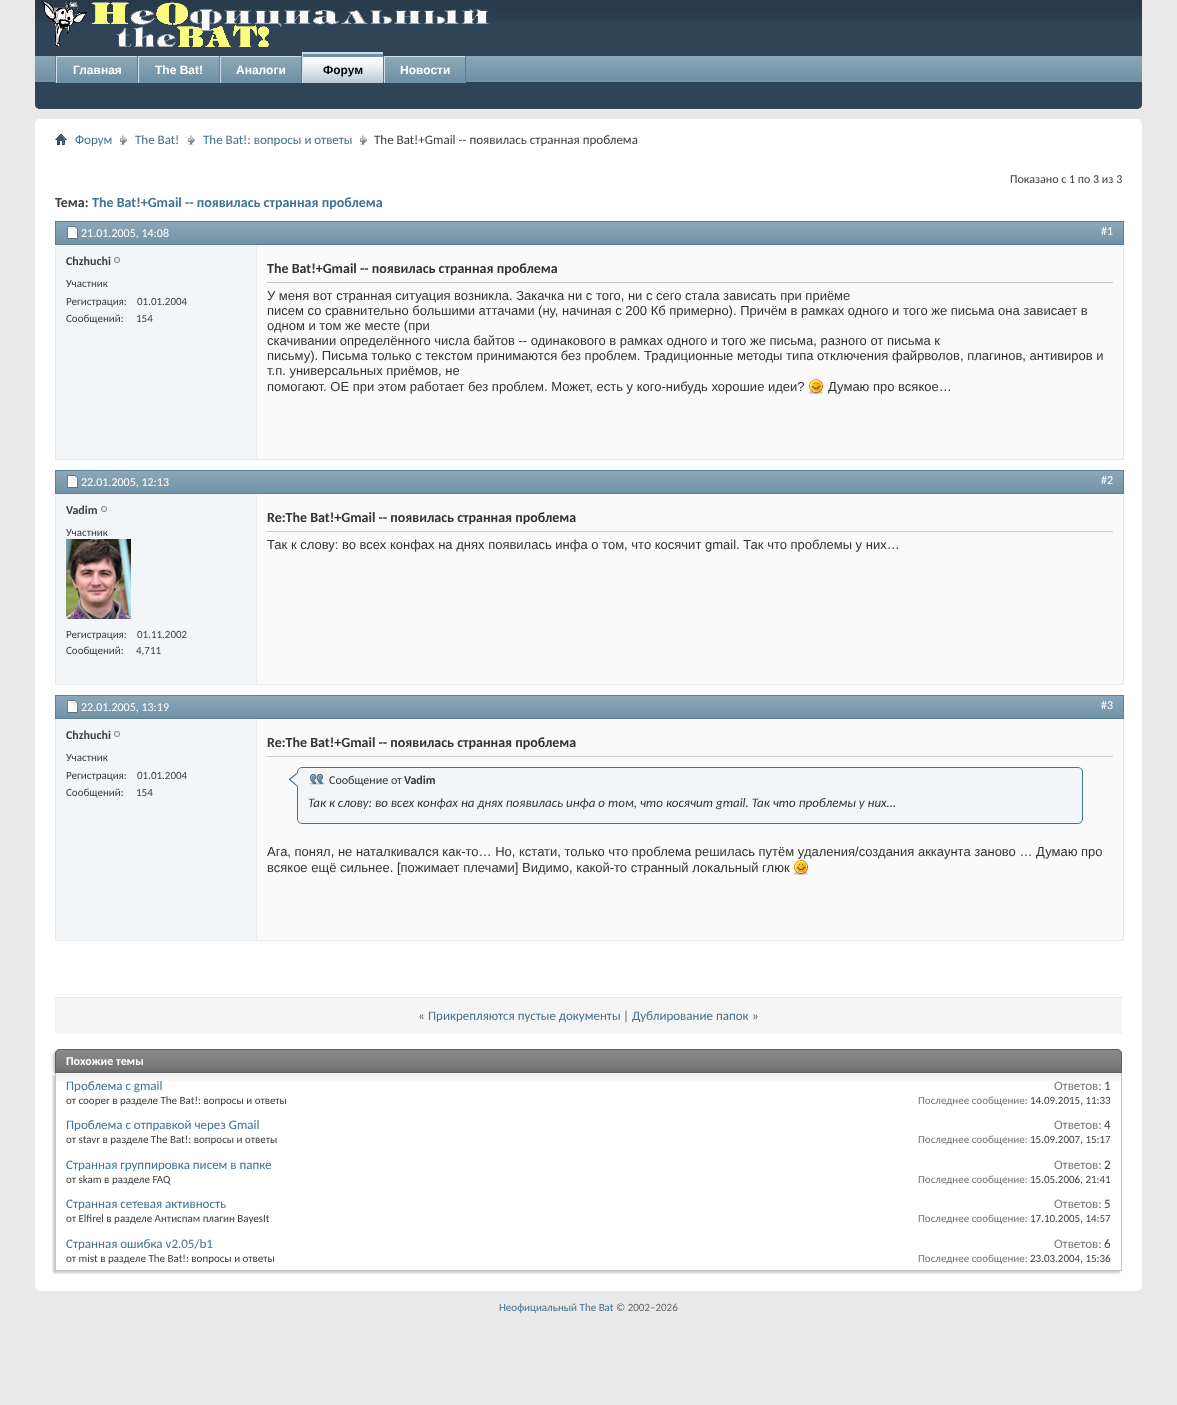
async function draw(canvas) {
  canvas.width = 1177;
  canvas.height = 1405;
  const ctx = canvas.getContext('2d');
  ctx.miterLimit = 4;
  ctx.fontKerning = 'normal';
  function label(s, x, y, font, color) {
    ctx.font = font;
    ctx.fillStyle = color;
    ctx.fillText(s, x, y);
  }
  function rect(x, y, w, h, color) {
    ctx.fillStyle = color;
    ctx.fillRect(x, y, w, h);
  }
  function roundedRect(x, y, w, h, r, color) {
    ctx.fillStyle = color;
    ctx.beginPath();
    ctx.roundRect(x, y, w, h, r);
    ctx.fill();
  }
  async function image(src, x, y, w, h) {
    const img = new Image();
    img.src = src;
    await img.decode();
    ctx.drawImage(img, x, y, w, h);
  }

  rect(0, 0, 1177, 1405, '#e9e9e9');
  ctx.fillStyle = '#2f4456';
  ctx.beginPath();
  ctx.roundRect(35, 0, 1107, 109, [0, 0, 5, 5]);
  ctx.fill();
  await image('assets/img1.png', 35, 0, 1107, 22);
  await image('assets/img2.png', 42, 0, 448, 47);
  ctx.beginPath();
  ctx.roundRect(35, 56, 1107, 53, [0, 0, 5, 5]);
  ctx.fill();
  rect(35, 56, 1107, 26, '#7192a8');
  await image('assets/img3.png', 35, 56, 1107, 20);
  rect(137, 56, 1, 27, '#5a7f97');
  rect(55, 56, 1, 27, '#5a7f97');
  rect(57, 57, 80, 26, '#7192a8');
  await image('assets/img4.png', 57, 57, 80, 20);
  rect(56, 56, 81, 1, '#cedfeb');
  rect(56, 56, 1, 27, '#cedfeb');
  label('Главная', 73, 74, 'bold 12px Liberation Sans', '#fff');
  rect(219, 56, 1, 27, '#5a7f97');
  rect(139, 57, 80, 26, '#7192a8');
  await image('assets/img4.png', 139, 57, 80, 20);
  rect(138, 56, 81, 1, '#cedfeb');
  rect(138, 56, 1, 27, '#cedfeb');
  label('The Bat!', 155, 74, 'bold 12px Liberation Sans', '#fff');
  rect(301, 56, 1, 27, '#5a7f97');
  rect(221, 57, 80, 26, '#7192a8');
  await image('assets/img4.png', 221, 57, 80, 20);
  rect(220, 56, 81, 1, '#cedfeb');
  rect(220, 56, 1, 27, '#cedfeb');
  label('Аналоги', 236, 74, 'bold 12px Liberation Sans', '#fff');
  rect(383, 56, 1, 26, '#5a7f97');
  rect(303, 53, 80, 30, '#7192a8');
  await image('assets/img5.png', 303, 53, 80, 30);
  rect(302, 52, 81, 1, '#cedfeb');
  rect(302, 52, 1, 31, '#cedfeb');
  label('Форум', 323, 74, 'bold 12px Liberation Sans', '#000');
  rect(465, 56, 1, 27, '#5a7f97');
  rect(385, 57, 80, 26, '#7192a8');
  await image('assets/img4.png', 385, 57, 80, 20);
  rect(384, 56, 81, 1, '#cedfeb');
  rect(384, 56, 1, 27, '#cedfeb');
  label('Новости', 400, 74, 'bold 12px Liberation Sans', '#fff');
  roundedRect(35, 119, 1107, 1172, 5, '#fff');
  await image('assets/img6.png', 55, 134, 12, 11);
  await image('assets/img7.png', 120, 135, 7, 10);
  label('Форум', 75, 144, '13px Carlito', '#417394');
  await image('assets/img7.png', 188, 135, 7, 10);
  label('The Bat!', 135, 144, '13px Carlito', '#417394');
  await image('assets/img7.png', 360, 135, 7, 10);
  label('The Bat!: вопросы и ответы', 203, 144, '13px Carlito', '#417394');
  label('The Bat!+Gmail -- появилась странная проблема', 374, 144, '13px Carlito', '#3e3e3e');
  label('Показано с 1 по 3 из 3', 1010, 183, '12px Carlito', '#3e3e3e');
  label('Тема:', 55, 207, 'bold 14px Carlito', '#3e3e3e');
  label('The Bat!+Gmail -- появилась странная проблема', 92, 207, 'bold 14px Carlito', '#417394');
  ctx.strokeStyle = '#e9e9e9';
  ctx.strokeRect(55.5, 221.5, 1068, 238);
  rect(56, 222, 1067, 22, '#7192a8');
  await image('assets/img8.png', 56, 222, 1067, 20);
  ctx.strokeStyle = '#5a7f97';
  ctx.strokeRect(55.5, 221.5, 1068, 23);
  await image('assets/img9.png', 67, 226, 11, 13);
  label('21.01.2005, 14:08', 81, 237, '12px Carlito', '#fff');
  label('#1', 1101, 235, '12px Carlito', '#fff');
  rect(56, 245, 200, 214, '#f2f6f8');
  label('Chzhuchi', 66, 265, 'bold 12px Carlito', '#3e3e3e');
  await image('assets/img10.png', 114, 257, 6, 6);
  label('Участник', 66, 287, '11px Carlito', '#3e3e3e');
  label('Регистрация:', 66, 305, '11px Carlito', '#3e3e3e');
  label('01.01.2004', 137, 305, '11px Carlito', '#3e3e3e');
  label('Сообщений:', 66, 322, '11px Carlito', '#3e3e3e');
  label('154', 136, 322, '11px Carlito', '#3e3e3e');
  rect(257, 245, 866, 214, '#fafafa');
  rect(256, 245, 1, 214, '#efefef');
  rect(267, 282, 846, 1, '#c8c8c8');
  label('The Bat!+Gmail -- появилась странная проблема', 267, 273, 'bold 14px Carlito', '#333');
  label('У меня вот странная ситуация возникла. Закачка ни с того, ни с сего стала зависать при приёме', 267, 300, '13px Liberation Sans', '#333');
  label('писем со сравнительно большими аттачами (ну, начиная с 200 Кб примерно). Причём в рамках одного и того же письма она зависает в', 267, 315, '13px Liberation Sans', '#333');
  label('одном и том же месте (при', 267, 330, '13px Liberation Sans', '#333');
  label('скачивании определённого числа байтов -- одинакового в рамках одного и того же письма, разного от письма к', 267, 345, '13px Liberation Sans', '#333');
  label('письму). Письма только с текстом принимаются без проблем. Традиционные методы типа отключения файрволов, плагинов, антивиров и', 267, 360, '13px Liberation Sans', '#333');
  label('т.п. универсальных приёмов, не', 267, 375, '13px Liberation Sans', '#333');
  label('помогают. ОЕ при этом работает без проблем. Может, есть у кого-нибудь хорошие идеи?', 267, 391, '13px Liberation Sans', '#333');
  await image('assets/img11.png', 808, 379, 15, 15);
  label('Думаю про всякое…', 828, 391, '13px Liberation Sans', '#333');
  ctx.strokeStyle = '#e9e9e9';
  ctx.strokeRect(55.5, 470.5, 1068, 214);
  rect(56, 471, 1067, 22, '#7192a8');
  await image('assets/img8.png', 56, 471, 1067, 20);
  ctx.strokeStyle = '#5a7f97';
  ctx.strokeRect(55.5, 470.5, 1068, 23);
  await image('assets/img9.png', 67, 475, 11, 13);
  label('22.01.2005, 12:13', 81, 486, '12px Carlito', '#fff');
  label('#2', 1101, 484, '12px Carlito', '#fff');
  rect(56, 494, 200, 190, '#f2f6f8');
  label('Vadim', 66, 514, 'bold 12px Carlito', '#3e3e3e');
  await image('assets/img10.png', 101, 506, 6, 6);
  label('Участник', 66, 536, '11px Carlito', '#3e3e3e');
  await image('assets/img12.png', 66, 539, 65, 80);
  label('Регистрация:', 66, 638, '11px Carlito', '#3e3e3e');
  label('01.11.2002', 137, 638, '11px Carlito', '#3e3e3e');
  label('Сообщений:', 66, 654, '11px Carlito', '#3e3e3e');
  label('4,711', 136, 654, '11px Carlito', '#3e3e3e');
  rect(257, 494, 866, 190, '#fafafa');
  rect(256, 494, 1, 190, '#efefef');
  rect(267, 531, 846, 1, '#c8c8c8');
  label('Re:The Bat!+Gmail -- появилась странная проблема', 267, 522, 'bold 14px Carlito', '#333');
  label('Так к слову: во всех конфах на днях появилась инфа о том, что косячит gmail. Так что проблемы у них…', 267, 549, '13px Liberation Sans', '#333');
  ctx.strokeStyle = '#e9e9e9';
  ctx.strokeRect(55.5, 695.5, 1068, 245);
  rect(56, 696, 1067, 22, '#7192a8');
  await image('assets/img8.png', 56, 696, 1067, 20);
  ctx.strokeStyle = '#5a7f97';
  ctx.strokeRect(55.5, 695.5, 1068, 23);
  await image('assets/img9.png', 67, 700, 11, 13);
  label('22.01.2005, 13:19', 81, 711, '12px Carlito', '#fff');
  label('#3', 1101, 709, '12px Carlito', '#fff');
  rect(56, 719, 200, 221, '#f2f6f8');
  label('Chzhuchi', 66, 739, 'bold 12px Carlito', '#3e3e3e');
  await image('assets/img10.png', 114, 731, 6, 6);
  label('Участник', 66, 761, '11px Carlito', '#3e3e3e');
  label('Регистрация:', 66, 779, '11px Carlito', '#3e3e3e');
  label('01.01.2004', 137, 779, '11px Carlito', '#3e3e3e');
  label('Сообщений:', 66, 796, '11px Carlito', '#3e3e3e');
  label('154', 136, 796, '11px Carlito', '#3e3e3e');
  rect(257, 719, 866, 221, '#fafafa');
  rect(256, 719, 1, 221, '#efefef');
  rect(267, 756, 846, 1, '#c8c8c8');
  label('Re:The Bat!+Gmail -- появилась странная проблема', 267, 747, 'bold 14px Carlito', '#333');
  ctx.fillStyle = '#f2f6f8';
  ctx.beginPath();
  ctx.roundRect(297.5, 767.5, 785, 56, 4.5);
  ctx.fill();
  ctx.strokeStyle = '#417394';
  ctx.stroke();
  await image('assets/img13.png', 289, 773, 9, 13);
  await image('assets/img14.png', 308, 774, 18, 11);
  label('Сообщение от', 329, 784, '12px Carlito', '#333');
  label('Vadim', 404, 784, 'bold 12px Carlito', '#333');
  label('Так к слову: во всех конфах на днях появилась инфа о том, что косячит gmail. Так что проблемы у них…', 308, 807, 'italic 13px Carlito', '#333');
  label('Ага, понял, не наталкивался как-то… Но, кстати, только что проблема решилась путём удаления/создания аккаунта заново … Думаю про', 267, 856, '13px Liberation Sans', '#333');
  label('всякое ещё сильнее. [пожимает плечами] Видимо, какой-то странный локальный глюк', 267, 872, '13px Liberation Sans', '#333');
  await image('assets/img11.png', 793, 860, 15, 15);
  rect(55, 998, 1067, 36, '#f5f5f5');
  rect(55, 997, 1067, 1, '#e7e7e7');
  label('«', 418, 1020, '13px Carlito', '#5d5d5d');
  label('Прикрепляются пустые документы', 428, 1020, '13px Carlito', '#417394');
  label('|', 623, 1020, '13px Carlito', '#5d5d5d');
  label('Дублирование папок', 632, 1020, '13px Carlito', '#417394');
  label('»', 752, 1020, '13px Carlito', '#5d5d5d');
  ctx.fillStyle = '#c8c8c8';
  ctx.filter = 'blur(1px)';
  ctx.beginPath();
  ctx.roundRect(53, 1051, 1067, 24, 5);
  ctx.fill();
  ctx.filter = 'none';
  ctx.fillStyle = '#707070';
  ctx.beginPath();
  ctx.roundRect(55, 1049, 1067, 24, [5, 5, 0, 0]);
  ctx.fill();
  await image('assets/img15.png', 55, 1050, 1067, 20);
  ctx.beginPath();
  ctx.roundRect(55.5, 1049.5, 1066, 23, [4.5, 4.5, 0, 0]);
  ctx.strokeStyle = '#606060';
  ctx.stroke();
  label('Похожие темы', 66, 1065, 'bold 12px Carlito', '#fff');
  ctx.fillStyle = '#c8c8c8';
  ctx.filter = 'blur(1px)';
  ctx.beginPath();
  ctx.rect(53, 1075, 1067, 198);
  ctx.fill();
  ctx.filter = 'none';
  rect(56, 1073, 1065, 197, '#fff');
  await image('assets/img16.png', 56, 1073, 1065, 9);
  rect(1121, 1073, 1, 198, '#c4c4c4');
  rect(55, 1270, 1067, 1, '#c4c4c4');
  rect(55, 1073, 1, 198, '#c4c4c4');
  label('Проблема с gmail', 66, 1090, '13px Carlito', '#417394');
  label('от cooper в разделе The Bat!: вопросы и ответы', 66, 1104, '11px Carlito', '#3e3e3e');
  label('Ответов:', 1054, 1090, '13px Carlito', '#777');
  label('1', 1104, 1090, '13px Carlito', '#3e3e3e');
  label('Последнее сообщение:', 918, 1104, '11px Carlito', '#777');
  label('14.09.2015, 11:33', 1030, 1104, '11px Carlito', '#3e3e3e');
  label('Проблема с отправкой через Gmail', 66, 1129, '13px Carlito', '#417394');
  label('от stavr в разделе The Bat!: вопросы и ответы', 66, 1143, '11px Carlito', '#3e3e3e');
  label('Ответов:', 1054, 1129, '13px Carlito', '#777');
  label('4', 1104, 1129, '13px Carlito', '#3e3e3e');
  label('Последнее сообщение:', 918, 1143, '11px Carlito', '#777');
  label('15.09.2007, 15:17', 1030, 1143, '11px Carlito', '#3e3e3e');
  label('Странная группировка писем в папке', 66, 1169, '13px Carlito', '#417394');
  label('от skam в разделе FAQ', 66, 1183, '11px Carlito', '#3e3e3e');
  label('Ответов:', 1054, 1169, '13px Carlito', '#777');
  label('2', 1104, 1169, '13px Carlito', '#3e3e3e');
  label('Последнее сообщение:', 918, 1183, '11px Carlito', '#777');
  label('15.05.2006, 21:41', 1030, 1183, '11px Carlito', '#3e3e3e');
  label('Странная сетевая активность', 66, 1208, '13px Carlito', '#417394');
  label('от Elfirel в разделе Антиспам плагин BayesIt', 66, 1222, '11px Carlito', '#3e3e3e');
  label('Ответов:', 1054, 1208, '13px Carlito', '#777');
  label('5', 1104, 1208, '13px Carlito', '#3e3e3e');
  label('Последнее сообщение:', 918, 1222, '11px Carlito', '#777');
  label('17.10.2005, 14:57', 1030, 1222, '11px Carlito', '#3e3e3e');
  label('Странная ошибка v2.05/b1', 66, 1248, '13px Carlito', '#417394');
  label('от mist в разделе The Bat!: вопросы и ответы', 66, 1262, '11px Carlito', '#3e3e3e');
  label('Ответов:', 1054, 1248, '13px Carlito', '#777');
  label('6', 1104, 1248, '13px Carlito', '#3e3e3e');
  label('Последнее сообщение:', 918, 1262, '11px Carlito', '#777');
  label('23.03.2004, 15:36', 1030, 1262, '11px Carlito', '#3e3e3e');
  label('Неофициальный The Bat', 499, 1311, '11px Carlito', '#417394');
  label('© 2002–2026', 616, 1311, '11px Carlito', '#666');
}

draw(document.querySelector('canvas'));
